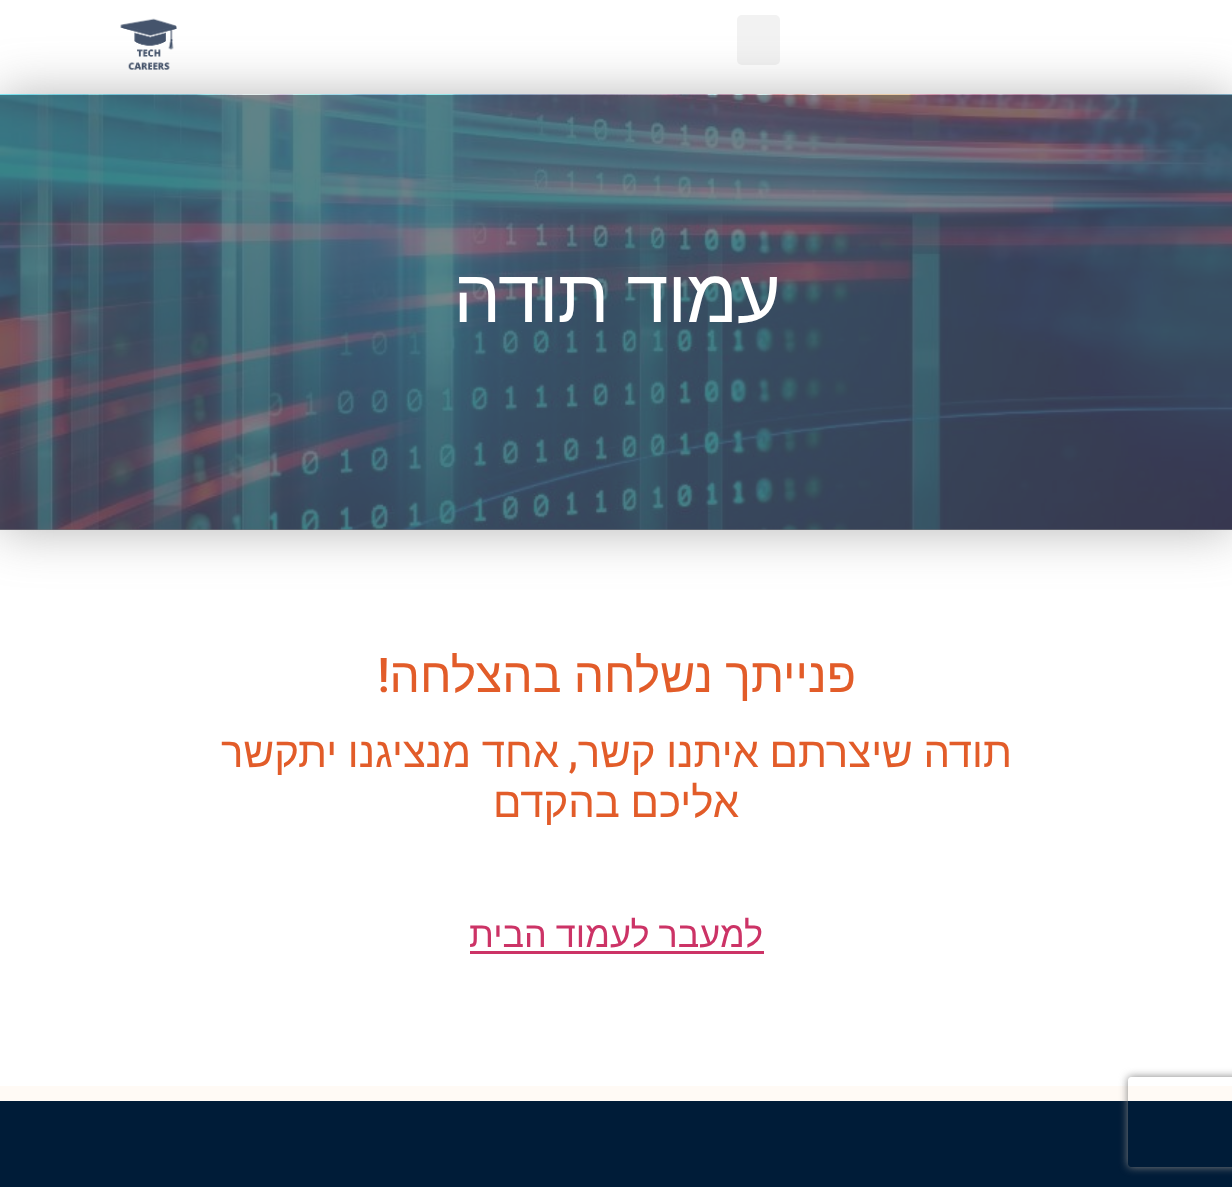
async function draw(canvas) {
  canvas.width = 1232;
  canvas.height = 1187;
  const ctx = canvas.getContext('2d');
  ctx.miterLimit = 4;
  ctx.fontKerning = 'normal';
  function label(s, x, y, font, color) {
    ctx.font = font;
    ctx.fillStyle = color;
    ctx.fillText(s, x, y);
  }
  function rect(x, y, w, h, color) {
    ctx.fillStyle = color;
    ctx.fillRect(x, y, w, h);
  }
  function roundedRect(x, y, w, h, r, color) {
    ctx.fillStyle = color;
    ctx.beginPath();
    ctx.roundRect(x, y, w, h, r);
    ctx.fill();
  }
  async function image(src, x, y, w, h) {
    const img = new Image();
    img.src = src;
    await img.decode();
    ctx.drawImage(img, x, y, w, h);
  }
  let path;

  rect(0, 0, 1232, 1187, '#fff');
  roundedRect(737, 15, 43, 50, 5, '#f2f2f2');
  await image('assets/img1.png', 120, 18, 57, 52);
  ctx.fillStyle = '#6b6b6b80';
  ctx.filter = 'blur(25.5px)';
  ctx.beginPath();
  ctx.rect(0, 95, 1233, 435);
  ctx.fill();
  ctx.filter = 'none';
  await image('assets/img2.png', 0, 94, 1232, 436);
  rect(0, 95, 1232, 435, '#4e4f56b3');
  ctx.letterSpacing = '-0.75px';
  ctx.wordSpacing = '-2px';
  ctx.direction = 'rtl';
  label('עמוד תודה', 780, 322, '75px Liberation Sans', '#fff');
  ctx.letterSpacing = '0px';
  ctx.wordSpacing = '-1px';
  label('פנייתך נשלחה בהצלחה', 856, 692, '48px Liberation Sans', '#e25c29');
  ctx.wordSpacing = '0px';
  label('!', 390, 692, '500 48px Roboto', '#e25c29');
  ctx.wordSpacing = '-1px';
  label('תודה שיצרתם איתנו קשר', 1012, 767, '42px Liberation Sans', '#e25c29');
  ctx.wordSpacing = '0px';
  label(',', 578, 767, '500 42px Roboto', '#e25c29');
  ctx.wordSpacing = '-1px';
  label('אחד מנציגנו יתקשר', 559, 767, '42px Liberation Sans', '#e25c29');
  label('אליכם בהקדם', 739, 817, '42px Liberation Sans', '#e25c29');
  label('למעבר לעמוד הבית', 763, 947, '36px Liberation Sans', '#c36');
  rect(470, 951, 294, 3, '#c36');
  rect(0, 1086, 1232, 15, '#fffaf5');
  rect(0, 1101, 1232, 86, '#001c38');
  ctx.save();
  path = new Path2D('M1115 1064H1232V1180H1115ZM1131 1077H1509C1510.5 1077 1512 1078.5 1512 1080V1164C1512 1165.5 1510.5 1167 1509 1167H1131C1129.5 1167 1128 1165.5 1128 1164V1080C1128 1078.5 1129.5 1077 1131 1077Z');
  ctx.clip(path, 'evenodd');
  ctx.fillStyle = '#808080';
  ctx.filter = 'blur(4px)';
  ctx.beginPath();
  ctx.roundRect(1128, 1077, 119, 90, 3);
  ctx.fill();
  ctx.filter = 'none';
  ctx.restore();
}

draw(document.querySelector('canvas'));
